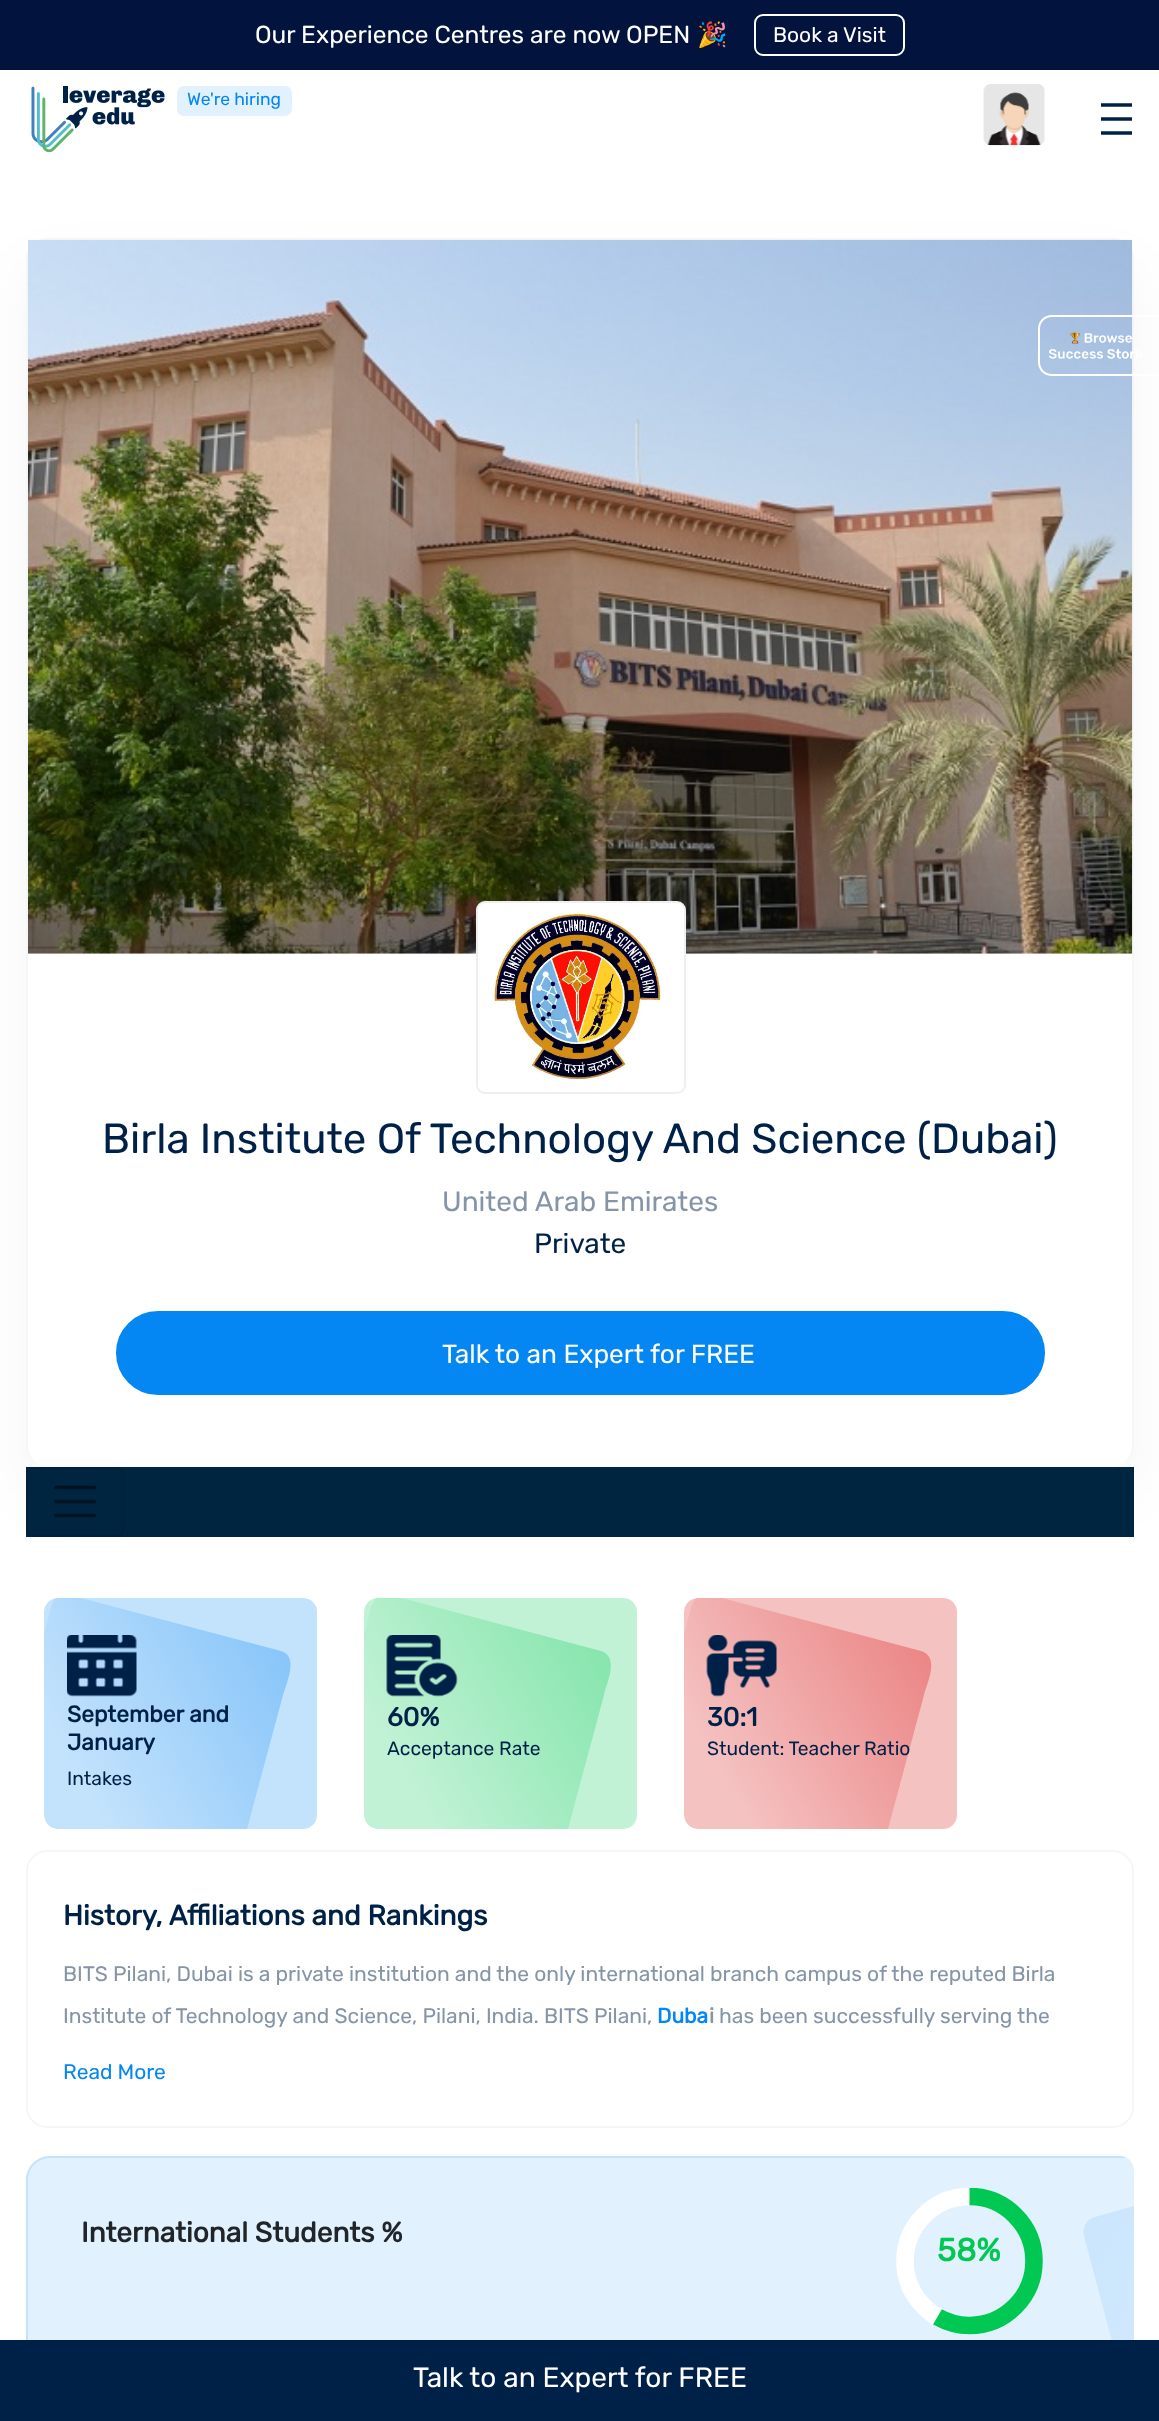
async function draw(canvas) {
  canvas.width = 1159;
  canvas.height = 2421;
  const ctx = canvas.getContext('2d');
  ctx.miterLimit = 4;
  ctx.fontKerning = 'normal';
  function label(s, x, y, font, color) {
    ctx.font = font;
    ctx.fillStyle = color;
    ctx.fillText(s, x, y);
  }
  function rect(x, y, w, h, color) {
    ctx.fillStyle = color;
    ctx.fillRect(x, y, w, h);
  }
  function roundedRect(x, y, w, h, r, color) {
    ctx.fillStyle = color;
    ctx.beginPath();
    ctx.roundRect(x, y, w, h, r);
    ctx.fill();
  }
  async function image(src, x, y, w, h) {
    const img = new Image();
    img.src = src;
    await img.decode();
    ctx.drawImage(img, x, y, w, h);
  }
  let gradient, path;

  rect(0, 0, 1159, 2421, '#fff');
  rect(0, 0, 1159, 70, '#02133e');
  label('Our Experience Centres are now OPEN', 255, 43, '300 24.5px Rubik', '#fff');
  label('🎉', 697, 43, '24.5px Noto Color Emoji', '#fff');
  ctx.beginPath();
  ctx.roundRect(755, 15, 149, 40, 8);
  ctx.strokeStyle = '#fff';
  ctx.lineWidth = 2;
  ctx.stroke();
  label('Book a Visit', 773, 42, '300 21px Rubik', '#fff');
  await image('assets/img1.png', 31, 86, 134, 66);
  roundedRect(177, 86, 115, 30, 7, '#e1f1fe');
  label('We\'re hiring', 187, 105, '300 17.5px Rubik', '#0487f3');
  await image('assets/img2.png', 983, 84, 62, 62);
  await image('assets/img3.png', 1101, 103, 31, 32);
  ctx.fillStyle = '#0000000a';
  ctx.filter = 'blur(28px)';
  ctx.beginPath();
  ctx.roundRect(26, 266, 1108, 1229, 21);
  ctx.fill();
  ctx.filter = 'none';
  roundedRect(26, 238, 1108, 1229, 21, '#fff');
  ctx.fillStyle = '#f5f6f8';
  path = new Path2D('M47 238H1113C1125 238 1134 247 1134 259V1446C1134 1457 1125 1466 1113 1466H47C36 1466 26 1457 26 1446V259C26 247 36 238 47 238ZM47 240H1113C1124 240 1132 248 1132 259V1446C1132 1457 1124 1466 1113 1466H47C37 1466 28 1457 28 1446V259C28 248 37 240 47 240Z');
  ctx.fill(path, 'evenodd');
  await image('assets/img4.png', 28, 239, 1105, 715);
  ctx.fillStyle = '#fff';
  ctx.beginPath();
  ctx.roundRect(477, 902, 208, 191, 8);
  ctx.fill();
  ctx.strokeStyle = '#efefef';
  ctx.stroke();
  await image('assets/img5.png', 494, 910, 168, 170);
  label('Birla Institute Of Technology And Science (Dubai)', 102, 1153, '300 42px Rubik', '#002147');
  label('United Arab Emirates', 442, 1211, '300 28px Rubik', '#8594a7');
  label('Private', 534, 1253, '300 28px Rubik', '#002147');
  ctx.fillStyle = '#0487f3';
  ctx.beginPath();
  ctx.roundRect(117, 1312, 927, 82, 41);
  ctx.fill();
  ctx.strokeStyle = '#0487f3';
  ctx.stroke();
  label('Talk to an Expert for FREE', 442, 1363, '300 26.25px Rubik', '#fff');
  rect(26, 1467, 1108, 70, '#002541');
  ctx.beginPath();
  ctx.roundRect(27, 1468, 96, 68, 6);
  ctx.strokeStyle = '#00213b';
  ctx.stroke();
  path = new Path2D('M56 1487.5H94.5M56 1501.5H94.5M56 1515.5H94.5');
  ctx.strokeStyle = '#001321';
  ctx.lineWidth = 3.5;
  ctx.lineCap = 'round';
  ctx.stroke(path);
  ctx.save();
  ctx.beginPath();
  ctx.roundRect(44, 1598, 273, 231, 14);
  ctx.clip();
  roundedRect(44, 1598, 280, 231, 14, '#c3e2fc');
  ctx.restore();
  gradient = ctx.createLinearGradient(337, 1731, 123, 1854);
  gradient.addColorStop(0, '#87c5f9');
  gradient.addColorStop(1, '#87c5f900');
  ctx.fillStyle = gradient;
  path = new Path2D('M58 1598H55C54 1600 52 1602 52 1604L44 1634V1815C44 1822 50 1829 58 1829H247L283 1695L285 1689C289 1677 297 1656 281 1651L81 1598Z');
  ctx.fill(path);
  await image('assets/img6.png', 67, 1635, 70, 62);
  label('September and', 67, 1722, 'bold 22.75px Rubik', '#002147');
  label('January', 67, 1750, 'bold 22.75px Rubik', '#002147');
  label('Intakes', 67, 1785, '300 19.25px Rubik', '#002147');
  ctx.save();
  ctx.beginPath();
  ctx.roundRect(364, 1598, 273, 231, 14);
  ctx.clip();
  roundedRect(364, 1598, 280, 231, 14, '#c2f2d6');
  ctx.restore();
  gradient = ctx.createLinearGradient(658, 1731, 444, 1854);
  gradient.addColorStop(0, '#85e5ac');
  gradient.addColorStop(1, '#85e5ac00');
  ctx.fillStyle = gradient;
  path = new Path2D('M376 1598C374 1600 373 1602 372 1604L364 1634V1815C364 1822 370 1829 378 1829H568L604 1695C606 1685 620 1657 601 1651L402 1598Z');
  ctx.fill(path, 'evenodd');
  await image('assets/img7.png', 386, 1635, 72, 62);
  label('60%', 387, 1726, 'bold 26.25px Rubik', '#002147');
  label('Acceptance Rate', 387, 1755, '300 19.25px Rubik', '#002147');
  ctx.save();
  ctx.beginPath();
  ctx.roundRect(684, 1598, 273, 231, 14);
  ctx.clip();
  roundedRect(684, 1598, 280, 231, 14, '#f5c2c2');
  ctx.restore();
  gradient = ctx.createLinearGradient(978, 1731, 764, 1854);
  gradient.addColorStop(0, '#eb8585');
  gradient.addColorStop(1, '#eb858500');
  ctx.fillStyle = gradient;
  path = new Path2D('M696 1598C694 1600 693 1602 692 1604L684 1634V1815C684 1822 691 1829 698 1829H888L924 1695C926 1685 941 1657 921 1651L722 1598Z');
  ctx.fill(path, 'evenodd');
  await image('assets/img8.png', 706, 1635, 71, 62);
  label('30:1', 707, 1726, 'bold 26.25px Rubik', '#002147');
  label('Student: Teacher Ratio', 707, 1755, '300 19.25px Rubik', '#002147');
  ctx.beginPath();
  ctx.roundRect(27, 1851, 1106, 276, 20);
  ctx.strokeStyle = '#f5f6f8';
  ctx.lineWidth = 2;
  ctx.stroke();
  label('History, Affiliations and Rankings', 63, 1925, 'bold 28px Rubik', '#002147');
  label('BITS Pilani, Dubai is a private institution and the only international branch campus of the reputed Birla', 63, 1981, '300 21px Rubik', '#8594a7');
  label('Institute of Technology and Science, Pilani, India. BITS Pilani,', 63, 2023, '300 21px Rubik', '#8594a7');
  label('Duba', 657, 2023, 'bold 21px Rubik', '#0487f3');
  label('i', 709, 2023, 'bold 21px Rubik', '#8594a7');
  label('has been successfully serving the', 719, 2023, '300 21px Rubik', '#8594a7');
  label('Read More', 63, 2079, '300 21px Rubik', '#0487f3');
  ctx.save();
  ctx.beginPath();
  ctx.roundRect(26, 2156, 1108, 228, 14);
  ctx.clip();
  ctx.fillStyle = '#e1f1fe';
  ctx.beginPath();
  ctx.roundRect(26, 2156, 1108, 227, [24, 14, 0, 24]);
  ctx.fill();
  ctx.restore();
  ctx.fillStyle = '#c3e2fc';
  path = new Path2D('M50 2156C37 2156 26 2167 26 2180V2359C26 2372 37 2383 50 2383H1125L1129 2381H50C38 2381 28 2371 28 2359V2180C28 2168 38 2158 50 2158H1127C1125 2157 1123 2156 1120 2156Z');
  ctx.fill(path);
  gradient = ctx.createLinearGradient(767, 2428, 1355, 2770);
  gradient.addColorStop(0, '#c3e2fc');
  gradient.addColorStop(1, '#c3e2fc00');
  ctx.fillStyle = gradient;
  path = new Path2D('M1134 2206V2370C1134 2376 1130 2381 1125 2383H1123L1084 2236C1082 2227 1087 2219 1095 2217Z');
  ctx.fill(path);
  label('International Students %', 81, 2242, 'bold 28px Rubik', '#212529');
  ctx.save();
  ctx.beginPath();
  ctx.rect(896, 2188, 147, 147);
  ctx.clip();
  path = new Path2D('M969.5 2196.5C1005 2196.5 1034 2225.5 1034 2261C1034 2296.5 1005 2325.5 969.5 2325.5C934 2325.5 905 2296.5 905 2261C905 2225.5 934 2196.5 969.5 2196.5');
  ctx.strokeStyle = '#fff';
  ctx.lineWidth = 17.6;
  ctx.lineCap = 'butt';
  ctx.setLineDash([406.4, 406.4]);
  ctx.stroke(path);
  path = new Path2D('M969.5 2196.5C1005 2196.5 1034 2225.5 1034 2261C1034 2296.5 1005 2325.5 969.5 2325.5C934 2325.5 905 2296.5 905 2261C905 2225.5 934 2196.5 969.5 2196.5');
  ctx.strokeStyle = '#00c853';
  ctx.lineDashOffset = 170.7;
  ctx.stroke(path);
  ctx.restore();
  label('58%', 937, 2261, 'bold 32px Rubik', '#00c853');
  rect(0, 2340, 1159, 81, '#002147');
  label('Talk to an Expert for FREE', 413, 2387, '300 28px Rubik', '#fff');
  path = new Path2D('M1052 315H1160V376H1052C1044 376 1038 370 1038 362V329C1038 321 1044 315 1052 315ZM1052 317H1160V374H1052C1045 374 1040 369 1040 362V329C1040 322 1045 317 1052 317Z');
  ctx.fill(path, 'evenodd');
  await image('assets/img9.png', 1048, 332, 94, 27);
}

draw(document.querySelector('canvas'));
